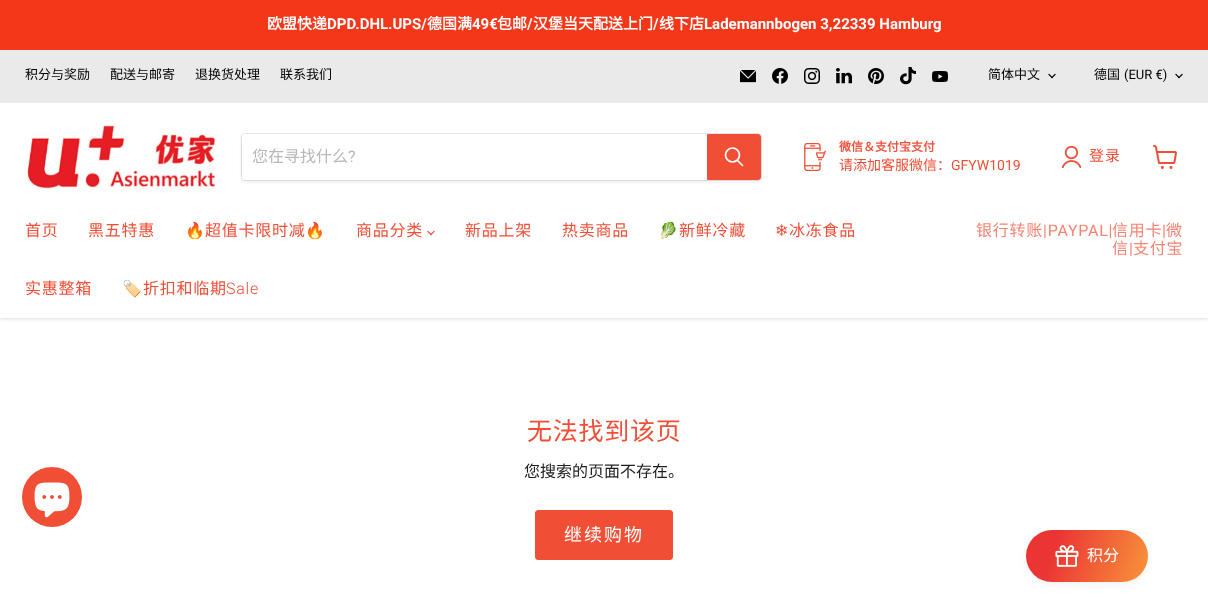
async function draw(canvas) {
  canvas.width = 1208;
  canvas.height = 612;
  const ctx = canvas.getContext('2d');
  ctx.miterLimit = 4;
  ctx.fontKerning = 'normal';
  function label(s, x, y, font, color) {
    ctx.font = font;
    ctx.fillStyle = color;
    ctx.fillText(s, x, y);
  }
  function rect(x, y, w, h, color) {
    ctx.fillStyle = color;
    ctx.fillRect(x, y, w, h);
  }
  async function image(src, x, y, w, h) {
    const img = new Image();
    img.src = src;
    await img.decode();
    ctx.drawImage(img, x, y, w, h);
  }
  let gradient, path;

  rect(0, 0, 1208, 612, '#fff');
  rect(0, 0, 1208, 50, '#f43718');
  label('欧盟快递', 267, 29, 'bold 15px Noto Sans CJK SC', '#fff');
  label('DPD.DHL.UPS/', 327, 29, 'bold 15px Roboto', '#fff');
  label('德国满', 427, 29, 'bold 15px Noto Sans CJK SC', '#fff');
  label('49€', 472, 29, 'bold 15px Roboto', '#fff');
  label('包邮', 497, 29, 'bold 15px Noto Sans CJK SC', '#fff');
  label('/', 527, 29, 'bold 15px Roboto', '#fff');
  label('汉堡当天配送上门', 533, 29, 'bold 15px Noto Sans CJK SC', '#fff');
  label('/', 653, 29, 'bold 15px Roboto', '#fff');
  label('线下店', 659, 29, 'bold 15px Noto Sans CJK SC', '#fff');
  label('Lademannbogen 3,22339 Hamburg', 704, 29, 'bold 15px Roboto', '#fff');
  ctx.save();
  ctx.beginPath();
  ctx.rect(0, 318, 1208, 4);
  ctx.clip();
  ctx.fillStyle = '#80808040';
  ctx.filter = 'blur(2px)';
  ctx.beginPath();
  ctx.rect(0, 104, 1208, 215);
  ctx.fill();
  ctx.filter = 'none';
  ctx.restore();
  rect(0, 50, 1208, 53, '#eaeaea');
  label('积分与奖励', 25, 79, '13px Noto Sans CJK SC', '#000');
  label('配送与邮寄', 110, 79, '13px Noto Sans CJK SC', '#000');
  label('退换货处理', 195, 79, '13px Noto Sans CJK SC', '#000');
  label('联系我们', 280, 79, '13px Noto Sans CJK SC', '#000');
  await image('assets/img1.png', 740, 70, 16, 13);
  await image('assets/img2.png', 772, 68, 16, 16);
  await image('assets/img3.png', 804, 68, 16, 16);
  await image('assets/img4.png', 836, 68, 16, 16);
  await image('assets/img5.png', 868, 68, 16, 16);
  await image('assets/img6.png', 900, 67, 16, 18);
  await image('assets/img7.png', 932, 71, 16, 11);
  label('简体中文', 988, 79, '13px Noto Sans CJK SC', '#000');
  await image('assets/img8.png', 1048, 73, 8, 6);
  label('德国', 1094, 79, '13px Noto Sans CJK SC', '#000');
  label('(EUR €)', 1124, 79, '13px Roboto', '#000');
  await image('assets/img8.png', 1175, 73, 8, 6);
  await image('assets/img9.png', 25, 123, 191, 67);
  ctx.fillStyle = '#8080801c';
  ctx.filter = 'blur(1.5px)';
  ctx.beginPath();
  ctx.roundRect(241, 135, 521, 48, 4);
  ctx.fill();
  ctx.filter = 'none';
  ctx.beginPath();
  ctx.roundRect(241.5, 133.5, 520, 47, 3.5);
  ctx.strokeStyle = '#80808033';
  ctx.stroke();
  ctx.fillStyle = '#fff';
  ctx.beginPath();
  ctx.roundRect(242, 134, 465, 46, [3, 0, 0, 3]);
  ctx.fill();
  label('您在寻找什么', 252, 162, '16px Noto Sans CJK SC', '#b8b8b8');
  label('?', 348, 162, '16px Roboto', '#b8b8b8');
  ctx.fillStyle = '#f04f36';
  ctx.beginPath();
  ctx.roundRect(707.5, 134.5, 53, 45, [0, 2.5, 2.5, 0]);
  ctx.fill();
  ctx.strokeStyle = '#f04f36';
  ctx.stroke();
  path = new Path2D('M742.5 165.5L737.5 160.5');
  ctx.strokeStyle = '#fff';
  ctx.lineWidth = 1.7;
  ctx.lineCap = 'round';
  ctx.stroke(path);
  ctx.beginPath();
  ctx.arc(732.5, 155, 7, 0, 2 * Math.PI);
  ctx.stroke();
  await image('assets/img10.png', 804, 143, 22, 28);
  label('微信＆支付宝支付', 839, 151, 'bold 12px Noto Sans CJK SC', '#f04f36');
  label('请添加客服微信：', 839, 170, '14px Noto Sans CJK SC', '#f04f36');
  label('GFYW1019', 951, 170, '14px Roboto', '#f04f36');
  await image('assets/img11.png', 1061, 145, 20, 24);
  ctx.letterSpacing = '1px';
  label('登录', 1089, 161, '15px Noto Sans CJK SC', '#f04f36');
  await image('assets/img12.png', 1153, 145, 24, 24);
  ctx.letterSpacing = '0.75px';
  label('首页', 25, 236, '16px Noto Sans CJK SC', '#f04f36');
  label('黑五特惠', 88, 236, '16px Noto Sans CJK SC', '#f04f36');
  label('🔥', 185, 236, '16px Noto Color Emoji', '#f04f36');
  label('超值卡限时减', 205, 236, '16px Noto Sans CJK SC', '#f04f36');
  label('🔥', 305, 236, '16px Noto Color Emoji', '#f04f36');
  label('商品分类', 356, 236, '16px Noto Sans CJK SC', '#f04f36');
  await image('assets/img13.png', 427, 230, 8, 6);
  label('新品上架', 465, 236, '16px Noto Sans CJK SC', '#f04f36');
  label('热卖商品', 562, 236, '16px Noto Sans CJK SC', '#f04f36');
  label('🥬', 658, 236, '16px Noto Color Emoji', '#f04f36');
  label('新鲜冷藏', 679, 236, '16px Noto Sans CJK SC', '#f04f36');
  label('❄', 775, 236, '16px DejaVu Sans', '#f04f36');
  label('冰冻食品', 789, 236, '16px Noto Sans CJK SC', '#f04f36');
  label('实惠整箱', 25, 294, '16px Noto Sans CJK SC', '#f04f36');
  label('🏷️', 122, 294, '16px "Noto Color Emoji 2"', '#f04f36');
  label('折扣和临期', 143, 294, '16px Noto Sans CJK SC', '#f04f36');
  label('Sale', 226, 294, '300 16px Roboto', '#f04f36');
  label('银行转账', 976, 236, '16px Noto Sans CJK SC', '#f58472');
  label('|PAYPAL|', 1043, 236, '16px Roboto', '#f58472');
  label('信用卡', 1112, 236, '16px Noto Sans CJK SC', '#f58472');
  label('|', 1162, 236, '16px Roboto', '#f58472');
  label('微', 1166, 236, '16px Noto Sans CJK SC', '#f58472');
  label('信', 1112, 254, '16px Noto Sans CJK SC', '#f58472');
  label('|', 1129, 254, '16px Roboto', '#f58472');
  label('支付宝', 1133, 254, '16px Noto Sans CJK SC', '#f58472');
  ctx.fillStyle = '#f04f36';
  ctx.beginPath();
  ctx.arc(52, 497, 30, 0, 2 * Math.PI);
  ctx.fill();
  await image('assets/img14.png', 34, 482, 36, 36);
  label('无法找到该页', 527, 440, '25px Noto Sans CJK SC', '#f04f36');
  ctx.letterSpacing = '0px';
  label('您搜索的页面不存在。', 524, 477, '16px Noto Sans CJK SC', '#1d1d1d');
  ctx.fillStyle = '#f04f36';
  ctx.beginPath();
  ctx.roundRect(535.5, 510.5, 137, 49, 2.5);
  ctx.fill();
  ctx.strokeStyle = '#f04f36';
  ctx.lineWidth = 1;
  ctx.stroke();
  ctx.letterSpacing = '2px';
  label('继续购物', 564, 541, '18px Noto Sans CJK SC', '#fff');
  ctx.fillStyle = '#44444414';
  ctx.filter = 'blur(4px)';
  ctx.beginPath();
  ctx.roundRect(1028, 536, 118, 48, 24);
  ctx.fill();
  ctx.filter = 'none';
  gradient = ctx.createLinearGradient(1025, 534, 1199, 596);
  gradient.addColorStop(0.17, '#eb3434');
  gradient.addColorStop(1, '#ffc93e');
  ctx.fillStyle = gradient;
  ctx.beginPath();
  ctx.roundRect(1026, 530, 122, 52, 26);
  ctx.fill();
  await image('assets/img15.png', 1055, 545, 24, 22);
  ctx.letterSpacing = '0px';
  label('积分', 1087, 561, '16px Noto Sans CJK SC', '#fff');
}

draw(document.querySelector('canvas'));
